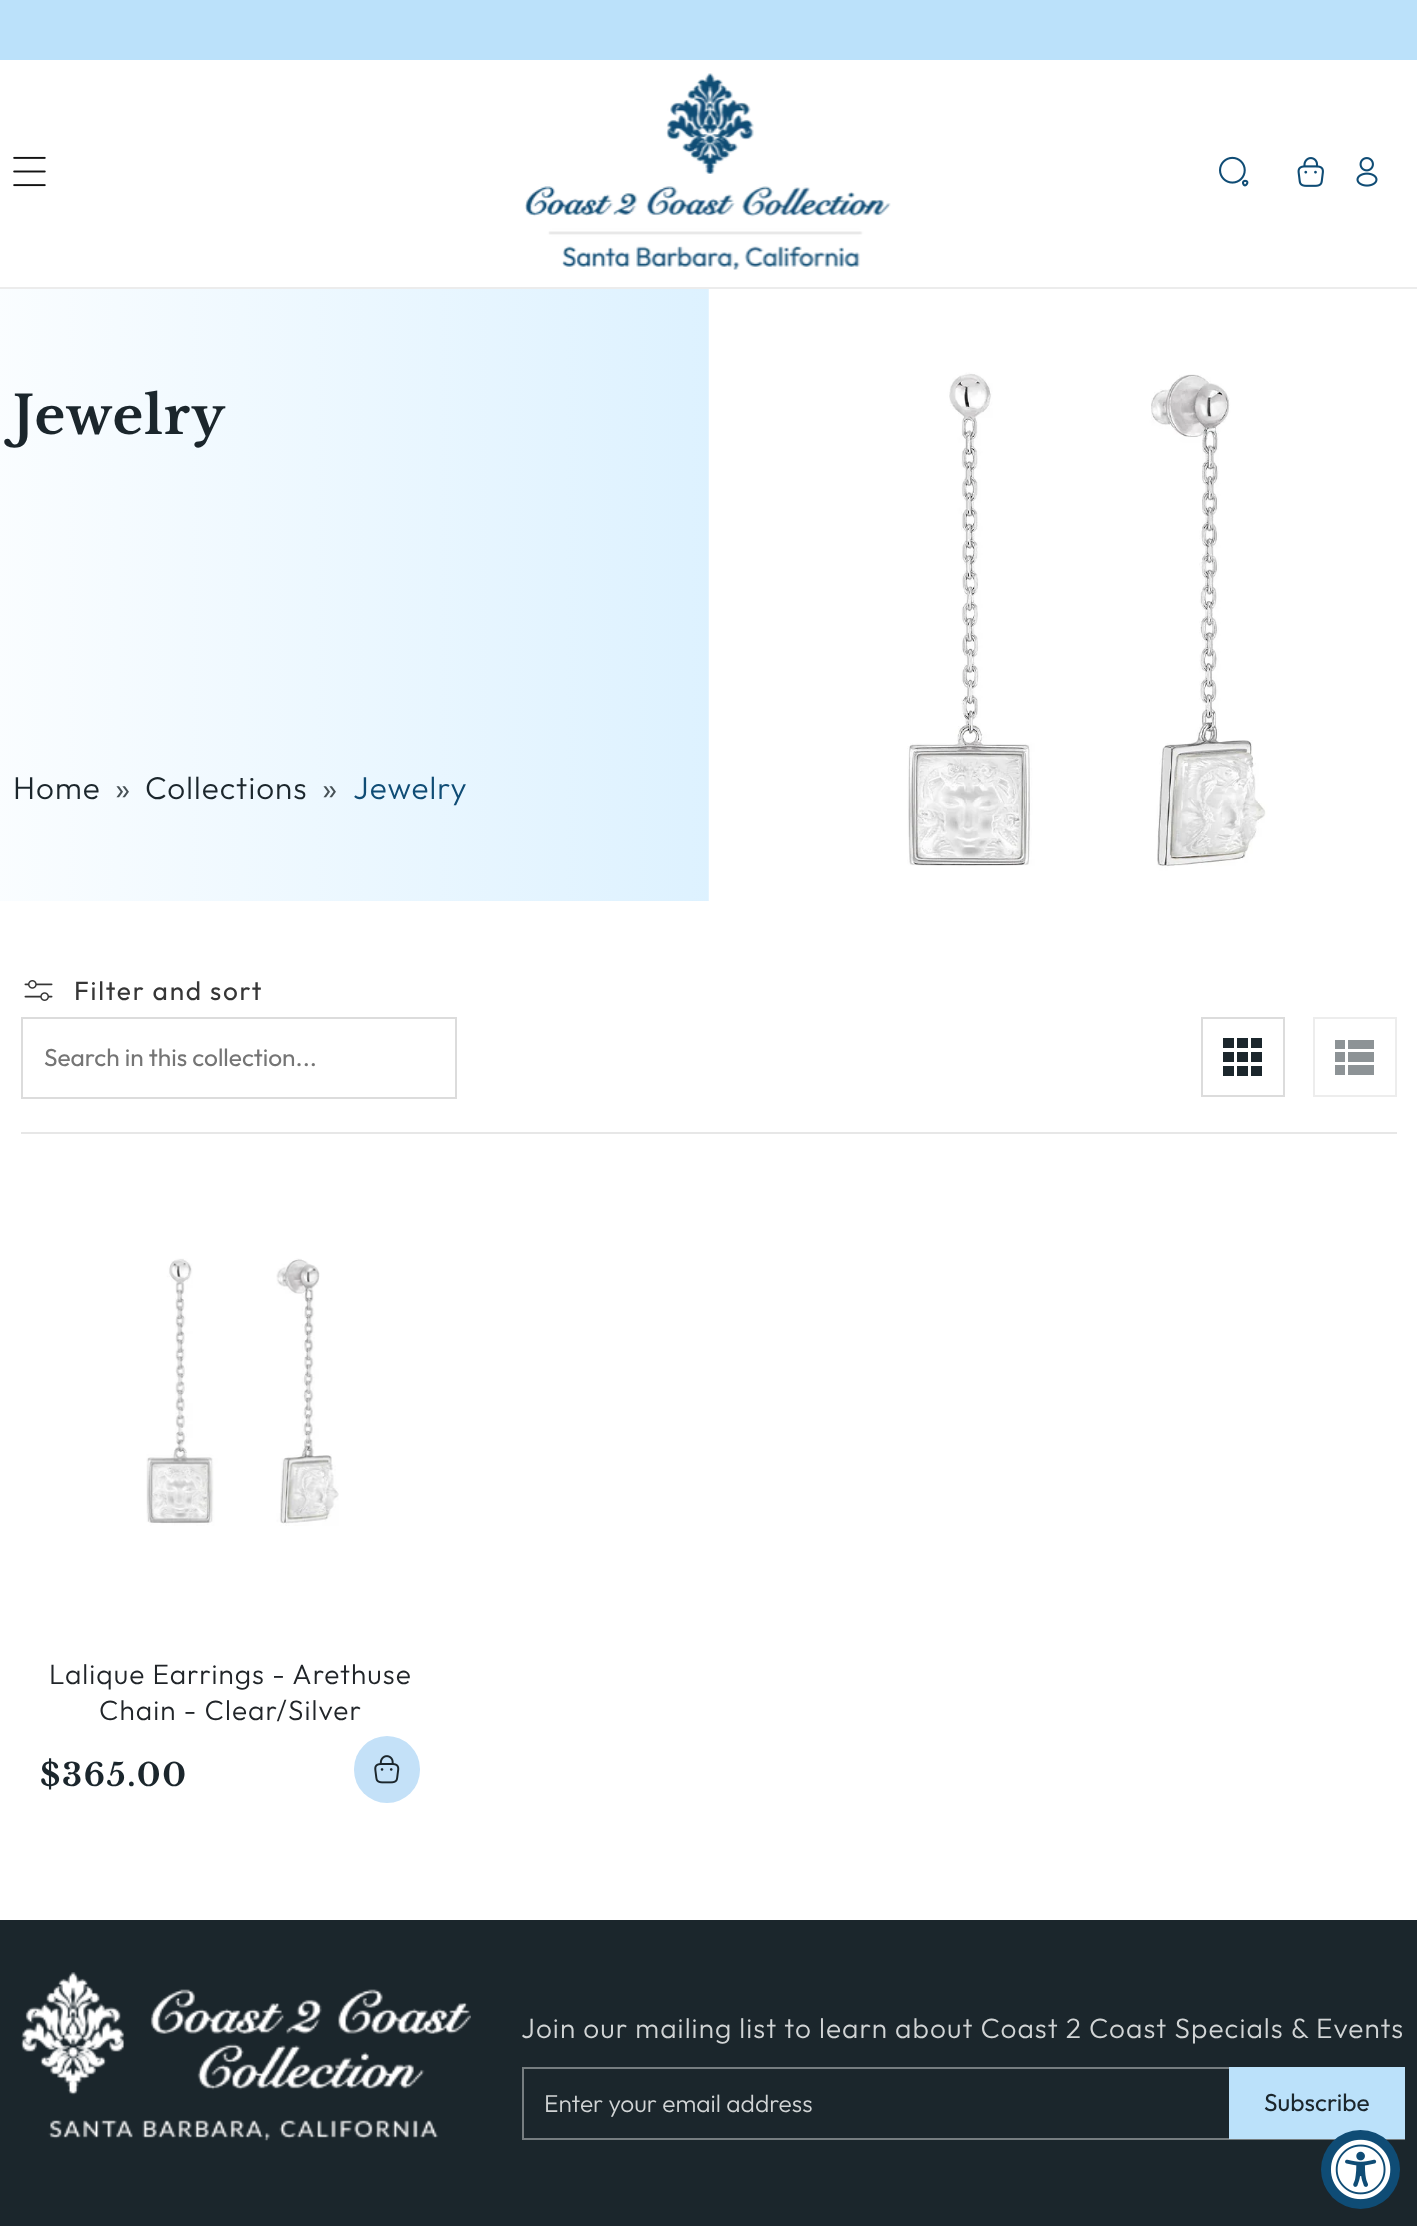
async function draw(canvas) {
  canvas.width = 1417;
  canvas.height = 2226;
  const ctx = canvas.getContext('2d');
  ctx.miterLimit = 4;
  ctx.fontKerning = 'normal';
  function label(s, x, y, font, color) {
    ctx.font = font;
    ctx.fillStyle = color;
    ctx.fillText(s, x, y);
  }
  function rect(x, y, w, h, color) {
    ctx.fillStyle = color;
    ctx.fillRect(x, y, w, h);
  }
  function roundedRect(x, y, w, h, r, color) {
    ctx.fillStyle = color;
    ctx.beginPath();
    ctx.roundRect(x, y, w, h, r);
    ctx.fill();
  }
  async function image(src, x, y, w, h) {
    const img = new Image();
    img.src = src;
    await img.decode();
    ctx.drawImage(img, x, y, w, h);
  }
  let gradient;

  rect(0, 0, 1417, 2226, '#fff');
  rect(0, 0, 1417, 60, '#bbe1fa');
  rect(0, 287, 1417, 2, '#ececec');
  await image('assets/img1.png', 13, 156, 33, 31);
  await image('assets/img2.png', 525, 73, 366, 197);
  await image('assets/img3.png', 1219, 156, 30, 31);
  await image('assets/img4.png', 1297, 157, 27, 30);
  await image('assets/img5.png', 1356, 157, 22, 30);
  gradient = ctx.createLinearGradient(-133, 595, 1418, 595);
  gradient.addColorStop(0, '#fff');
  gradient.addColorStop(0.61, '#d9f0ff');
  ctx.fillStyle = gradient;
  ctx.fillRect(0, 289, 709, 612);
  ctx.letterSpacing = '1.05px';
  label('Jewelry', 13, 434, 'bold 52.5px Libre Baskerville', '#1b262c');
  label('Home', 13, 799, '300 31.5px Outfit', '#1b262c');
  label('»', 115, 800, '300 35px Outfit', '#475156');
  label('Collections', 145, 799, '300 31.5px Outfit', '#1b262c');
  label('»', 322, 800, '300 35px Outfit', '#475156');
  label('Jewelry', 353, 799, '300 31.5px Outfit', '#0f4c75');
  await image('assets/img6.png', 708, 289, 709, 612);
  await image('assets/img7.png', 24, 980, 29, 21);
  ctx.letterSpacing = '1.75px';
  label('Filter and sort', 74, 1000, '26.25px Outfit', '#363636');
  rect(21, 1132, 1376, 2, '#e7e7e7');
  ctx.strokeStyle = '#dcdcdc';
  ctx.lineWidth = 2;
  ctx.strokeRect(22, 1018, 434, 80);
  ctx.letterSpacing = '0px';
  label('Search in this collection...', 44, 1066, '24.5px Outfit', '#757575');
  ctx.strokeRect(1202, 1018, 82, 78);
  await image('assets/img8.png', 1223, 1038, 39, 38);
  ctx.strokeStyle = '#ededed';
  ctx.strokeRect(1314, 1018, 82, 78);
  rect(1335, 1040, 10, 9, '#8d9396');
  rect(1335, 1052, 10, 10, '#8d9396');
  rect(1335, 1065, 10, 10, '#8d9396');
  rect(1348, 1040, 26, 9, '#8d9396');
  rect(1348, 1052, 26, 10, '#8d9396');
  rect(1348, 1065, 26, 10, '#8d9396');
  await image('assets/img9.png', 146, 1258, 193, 268);
  ctx.letterSpacing = '1.05px';
  label('Lalique Earrings - Arethuse', 49, 1684, '300 28px Outfit', '#212529');
  label('Chain - Clear/Silver', 99, 1720, '300 28px Outfit', '#212529');
  ctx.letterSpacing = '1.75px';
  label('$365.00', 40, 1786, 'bold 31.5px Libre Baskerville', '#1b262c');
  roundedRect(354, 1736, 66, 67, 33, '#c4e1f8');
  await image('assets/img10.png', 374, 1755, 26, 29);
  rect(0, 1920, 1417, 306, '#1b262c');
  await image('assets/img11.png', 21, 1972, 450, 169);
  ctx.letterSpacing = '1.05px';
  label('Join our mailing list to learn about Coast 2 Coast Specials & Events', 521, 2038, '300 28px Outfit', '#d1d4d5');
  ctx.strokeStyle = '#767d80';
  ctx.strokeRect(523, 2068, 881, 71);
  ctx.letterSpacing = '0px';
  label('Enter your email address', 544, 2112, '300 24.5px Outfit', '#d1d4d5');
  rect(1229, 2067, 176, 72, '#bbe1fa');
  label('Subscribe', 1264, 2111, '24.5px Outfit', '#1b262c');
  ctx.fillStyle = '#0f4c75';
  ctx.beginPath();
  ctx.arc(1360.5, 2169.5, 39.5, 0, 2 * Math.PI);
  ctx.fill();
  await image('assets/img12.png', 1330, 2139, 61, 61);
}

draw(document.querySelector('canvas'));
